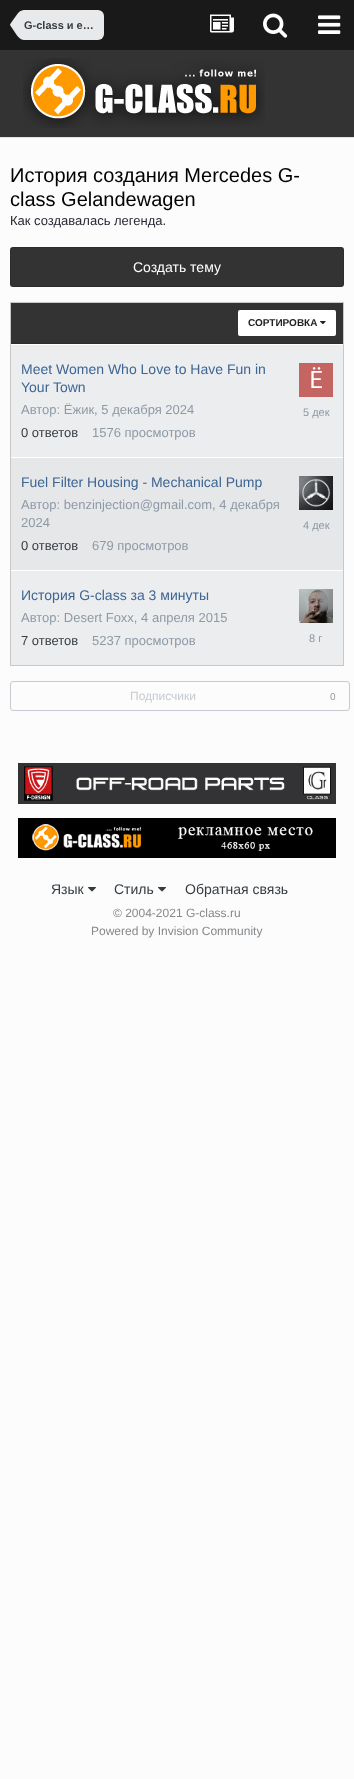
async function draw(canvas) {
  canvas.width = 354;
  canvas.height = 1779;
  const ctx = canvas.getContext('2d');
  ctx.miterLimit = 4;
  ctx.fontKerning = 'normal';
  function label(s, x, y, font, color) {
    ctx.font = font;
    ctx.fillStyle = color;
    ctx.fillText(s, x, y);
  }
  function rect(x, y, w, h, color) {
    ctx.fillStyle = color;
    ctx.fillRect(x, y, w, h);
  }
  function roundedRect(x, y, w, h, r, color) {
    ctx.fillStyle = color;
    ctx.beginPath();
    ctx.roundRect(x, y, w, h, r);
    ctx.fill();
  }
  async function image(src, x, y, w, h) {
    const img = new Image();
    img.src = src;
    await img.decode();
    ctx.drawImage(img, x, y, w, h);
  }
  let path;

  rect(0, 0, 354, 1779, '#fcfcfc');
  rect(0, 137, 354, 1, '#e3e3e3');
  rect(0, 0, 354, 50, '#191919');
  ctx.fillStyle = '#e8e9eb';
  ctx.beginPath();
  ctx.roundRect(24, 10, 80, 30, [0, 6, 6, 0]);
  ctx.fill();
  path = new Path2D('M24 25V40C22 40 19.5 38.5 17 35.5L10 25ZM24 25H10C10 24 18.5 12.5 19 12C20.5 11 22 10 24 10Z');
  ctx.fill(path);
  label('G-class и е…', 24, 29, 'bold 11px Liberation Sans', '#353c41');
  await image('assets/img1.png', 210, 14, 24, 19);
  await image('assets/img2.png', 263, 13, 25, 25);
  await image('assets/img3.png', 318, 15, 23, 19);
  rect(0, 50, 354, 87, '#333');
  await image('assets/img4.png', 23, 58, 242, 70);
  label('История создания Mercedes G-', 10, 182, '20px Liberation Sans', '#000');
  label('class Gelandewagen', 10, 206, '20px Liberation Sans', '#000');
  label('Как создавалась легенда.', 10, 225, '13px Liberation Sans', '#272a34');
  roundedRect(10, 247, 334, 40, 3, '#333');
  ctx.beginPath();
  ctx.roundRect(10.5, 247.5, 333, 39, 2.5);
  ctx.strokeStyle = '#0000001a';
  ctx.stroke();
  label('Создать тему', 133, 272, '14px Liberation Sans', '#fff');
  rect(11, 571, 332, 94, '#ecedef');
  ctx.strokeStyle = '#cac7c7';
  ctx.strokeRect(10.5, 302.5, 333, 363);
  rect(11, 303, 332, 40, '#333');
  rect(11, 343, 332, 1, '#2e2e2e');
  roundedRect(238, 310, 98, 26, 2, '#fff');
  label('СОРТИРОВКА', 248, 326, 'bold 10px Liberation Sans', '#222');
  await image('assets/img5.png', 320, 321, 6, 4);
  rect(11, 345, 332, 112, '#ecedef');
  rect(11, 344, 332, 1, '#fff');
  label('Meet Women Who Love to Have Fun in', 21, 374, '14px Liberation Sans', '#3d6594');
  label('Your Town', 21, 392, '14px Liberation Sans', '#3d6594');
  label('Автор: Ёжик, 5 декабря 2024', 21, 414, '13px Liberation Sans', '#8d9aa6');
  await image('assets/img6.png', 299, 363, 34, 34);
  label('5 дек', 303, 416, '11px Liberation Sans', '#8d9aa6');
  label('0 ответов', 21, 437, '13px Liberation Sans', '#353c41');
  label('1576 просмотров', 92, 437, '13px Liberation Sans', '#8d9aa6');
  rect(11, 458, 332, 112, '#e6e7e9');
  rect(11, 457, 332, 1, '#fff');
  label('Fuel Filter Housing - Mechanical Pump', 21, 487, '14px Liberation Sans', '#3d6594');
  label('Автор: benzinjection@gmail.com, 4 декабря', 21, 509, '13px Liberation Sans', '#8d9aa6');
  label('2024', 21, 527, '13px Liberation Sans', '#8d9aa6');
  await image('assets/img7.png', 299, 476, 34, 34);
  label('4 дек', 303, 529, '11px Liberation Sans', '#8d9aa6');
  label('0 ответов', 21, 550, '13px Liberation Sans', '#353c41');
  label('679 просмотров', 92, 550, '13px Liberation Sans', '#8d9aa6');
  rect(11, 570, 332, 1, '#fff');
  label('История G-class за 3 минуты', 21, 600, '14px Liberation Sans', '#3d6594');
  label('Автор: Desert Foxx, 4 апреля 2015', 21, 622, '13px Liberation Sans', '#8d9aa6');
  label('7 ответов', 21, 645, '13px Liberation Sans', '#353c41');
  label('5237 просмотров', 92, 645, '13px Liberation Sans', '#8d9aa6');
  await image('assets/img8.png', 299, 589, 34, 34);
  label('8 г', 309, 642, '11px Liberation Sans', '#8d9aa6');
  ctx.beginPath();
  ctx.roundRect(10.5, 681.5, 339, 29, 2.5);
  ctx.strokeStyle = '#c5cbd1';
  ctx.stroke();
  label('Подписчики', 130, 700, '12px Liberation Sans', '#c5cbd1');
  label('0', 330, 700, '10px Liberation Sans', '#989898');
  await image('assets/img9.png', 18, 763, 318, 41);
  await image('assets/img10.png', 18, 818, 318, 40);
  label('Язык', 51, 894, '14px Liberation Sans', '#353c41');
  await image('assets/img11.png', 88, 887, 8, 5);
  label('Стиль', 114, 894, '14px Liberation Sans', '#353c41');
  await image('assets/img11.png', 158, 887, 8, 5);
  label('Обратная связь', 185, 894, '14px Liberation Sans', '#353c41');
  label('© 2004-2021 G-class.ru', 113, 917, '12px Liberation Sans', '#85898c');
  label('Powered by Invision Community', 91, 935, '12px Liberation Sans', '#85898c');
}

draw(document.querySelector('canvas'));
